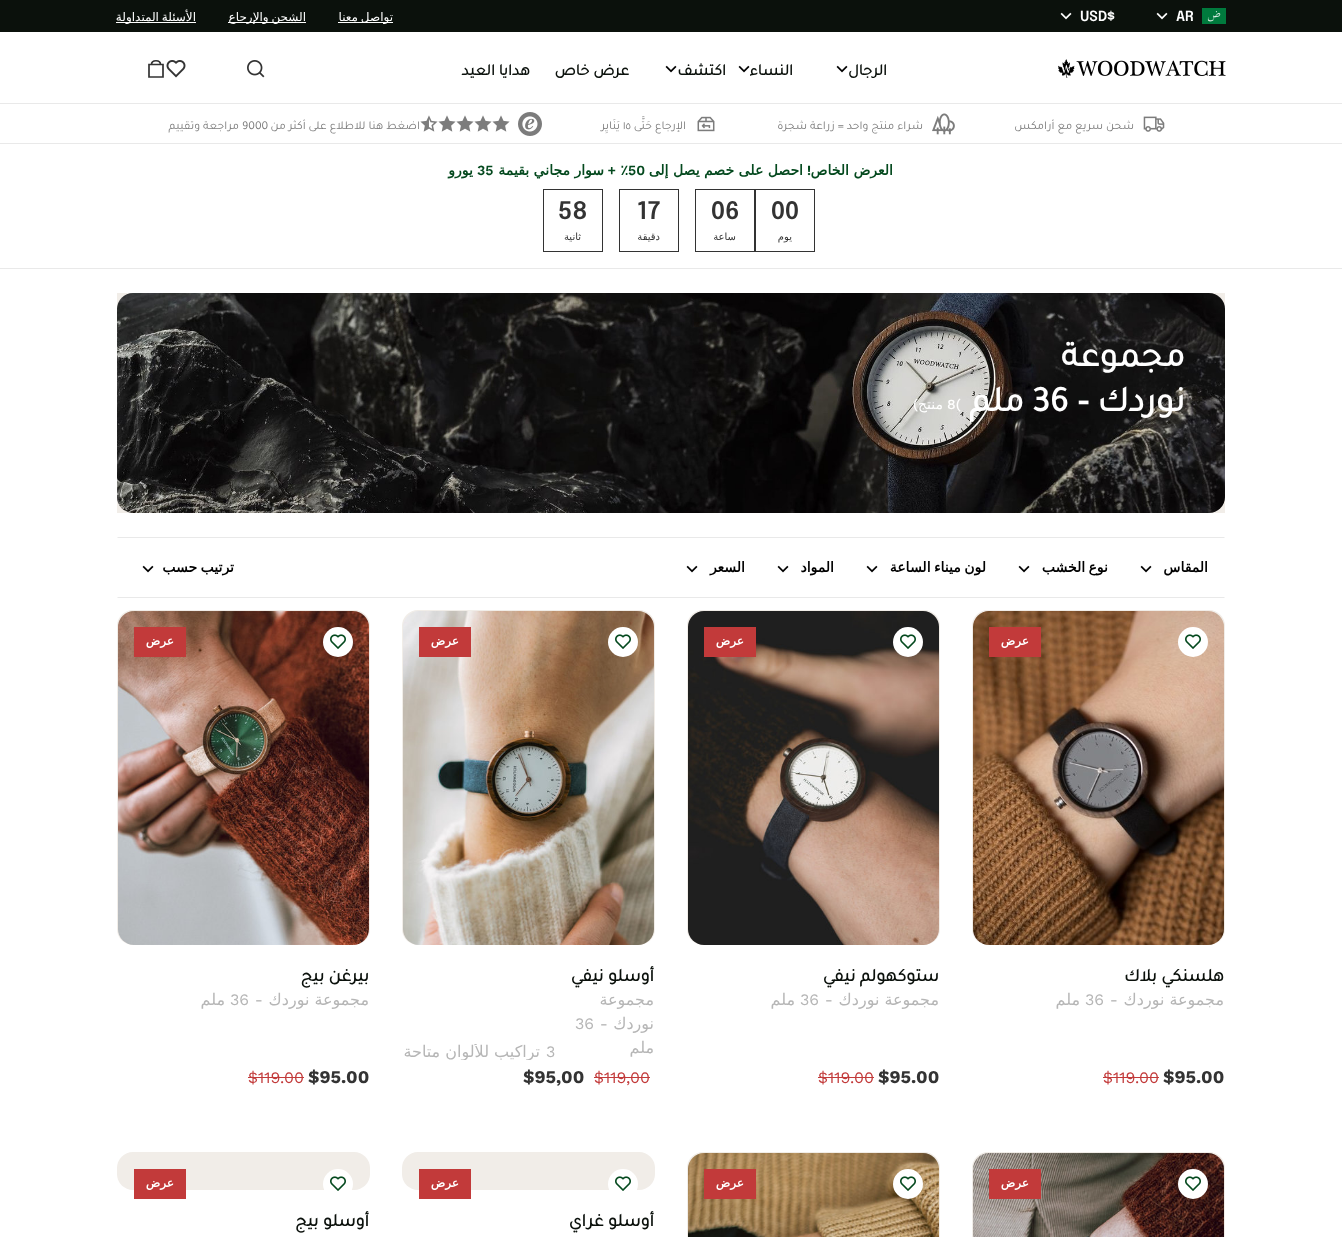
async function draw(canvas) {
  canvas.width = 1342;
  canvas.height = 1237;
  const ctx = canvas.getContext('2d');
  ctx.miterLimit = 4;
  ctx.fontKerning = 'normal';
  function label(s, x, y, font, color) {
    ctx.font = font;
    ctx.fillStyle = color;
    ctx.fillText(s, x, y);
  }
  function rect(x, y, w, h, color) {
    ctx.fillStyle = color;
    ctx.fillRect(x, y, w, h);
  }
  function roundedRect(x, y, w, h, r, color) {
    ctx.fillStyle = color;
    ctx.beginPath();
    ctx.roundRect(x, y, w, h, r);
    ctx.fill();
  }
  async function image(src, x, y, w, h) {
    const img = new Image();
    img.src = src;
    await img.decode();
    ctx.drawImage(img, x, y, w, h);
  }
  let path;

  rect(0, 0, 1342, 1237, '#fff');
  rect(0, 0, 1342, 32, '#0b110c');
  await image('assets/img1.png', 1202, 8, 24, 16);
  label('AR', 1176, 21, '600 14px Epilogue', '#fff');
  await image('assets/img2.png', 1156, 12, 12, 8);
  label('USD$', 1080, 21, '600 14px Epilogue', '#fff');
  await image('assets/img2.png', 1060, 12, 12, 8);
  rect(338, 22, 55, 1, '#fff');
  ctx.wordSpacing = '-1px';
  ctx.direction = 'rtl';
  label('تواصل معنا', 393, 21, '12px DejaVu Sans', '#fff');
  rect(228, 22, 78, 1, '#fff');
  label('الشحن والإرجاع', 306, 21, '12px DejaVu Sans', '#fff');
  rect(116, 22, 80, 1, '#fff');
  label('الأسئلة المتداولة', 196, 21, '12px DejaVu Sans', '#fff');
  rect(0, 103, 1342, 1, '#e9e9e9');
  await image('assets/img3.png', 1058, 59, 168, 19);
  ctx.wordSpacing = '0px';
  label('الرجال', 887, 75, 'bold 16px Tajawal', '#0b110c');
  await image('assets/img4.png', 836, 65, 12, 8);
  label('النساء', 793, 75, 'bold 16px Tajawal', '#0b110c');
  await image('assets/img4.png', 738, 65, 12, 8);
  label('اكتشف', 726, 75, 'bold 16px Tajawal', '#0b110c');
  await image('assets/img4.png', 665, 65, 12, 8);
  label('عرض خاص', 629, 75, 'bold 16px Tajawal', '#0b110c');
  label('هدايا العيد', 530, 75, 'bold 16px Tajawal', '#0b110c');
  await image('assets/img5.png', 247, 60, 18, 18);
  await image('assets/img6.png', 166, 60, 20, 18);
  path = new Path2D('M163 64.5H149V77H163ZM151.5 64.5C151.5 59.5 160.5 59.5 160.5 64.5');
  ctx.strokeStyle = '#333';
  ctx.lineWidth = 1.7;
  ctx.lineCap = 'square';
  ctx.stroke(path);
  rect(0, 143, 1342, 1, '#e9e9e9');
  await image('assets/img7.png', 1143, 116, 22, 16);
  label('شحن سريع مع أرامكس', 1134, 129, '12px Tajawal', '#7c7c7c');
  await image('assets/img8.png', 932, 113, 23, 22);
  label('شراء منتج واحد = زراعة شجرة', 923, 129, '12px Tajawal', '#7c7c7c');
  await image('assets/img9.png', 697, 116, 18, 16);
  label('الإرجاع حَتَّى', 686, 129, '12px Tajawal', '#7c7c7c');
  ctx.direction = 'ltr';
  label('١٥', 623, 129, '12px Tajawal', '#7c7c7c');
  ctx.direction = 'rtl';
  label('يَنَايِر', 620, 129, '12px Tajawal', '#7c7c7c');
  await image('assets/img10.png', 518, 112, 24, 24);
  await image('assets/img11.png', 492, 115, 18, 17);
  await image('assets/img11.png', 474, 115, 18, 17);
  await image('assets/img11.png', 456, 115, 18, 17);
  await image('assets/img11.png', 438, 115, 18, 17);
  await image('assets/img12.png', 420, 115, 18, 17);
  label('اضغط هنا للاطلاع على أكثر من', 420, 129, '12px Tajawal', '#7c7c7c');
  ctx.direction = 'ltr';
  label('9000', 242, 129, '12px Tajawal', '#7c7c7c');
  ctx.direction = 'rtl';
  label('مراجعة وتقييم', 239, 129, '12px Tajawal', '#7c7c7c');
  rect(0, 268, 1342, 1, '#e9e9e9');
  label('العرض الخاص', 893, 175, 'bold 14px DejaVu Sans', '#04491e');
  label('!', 811, 175, '600 14px Work Sans', '#04491e');
  label('احصل على خصم يصل إلى', 803, 175, 'bold 14px DejaVu Sans', '#04491e');
  ctx.direction = 'ltr';
  label('50', 628, 175, '600 14px Work Sans', '#04491e');
  ctx.direction = 'rtl';
  label('٪', 628, 175, 'bold 14px DejaVu Sans', '#04491e');
  label('+', 616, 175, '600 14px Work Sans', '#04491e');
  label('سوار مجاني بقيمة', 604, 175, 'bold 14px DejaVu Sans', '#04491e');
  ctx.direction = 'ltr';
  label('35', 477, 175, '600 14px Work Sans', '#04491e');
  ctx.direction = 'rtl';
  label('يورو', 473, 175, 'bold 14px DejaVu Sans', '#04491e');
  ctx.lineWidth = 1;
  ctx.strokeRect(755.5, 189.5, 59, 62);
  ctx.direction = 'ltr';
  label('00', 771, 219, '600 24px Epilogue', '#333');
  ctx.direction = 'rtl';
  label('يوم', 792, 240, '10px DejaVu Sans', '#333');
  ctx.strokeRect(695.5, 189.5, 59, 62);
  ctx.direction = 'ltr';
  label('06', 711, 219, '600 24px Epilogue', '#333');
  ctx.direction = 'rtl';
  label('ساعة', 736, 240, '10px DejaVu Sans', '#333');
  ctx.strokeRect(619.5, 189.5, 59, 62);
  ctx.direction = 'ltr';
  label('17', 637, 219, '600 24px Epilogue', '#333');
  ctx.direction = 'rtl';
  label('دقيقة', 660, 240, '10px DejaVu Sans', '#333');
  ctx.strokeRect(543.5, 189.5, 59, 62);
  ctx.direction = 'ltr';
  label('58', 558, 219, '600 24px Epilogue', '#333');
  ctx.direction = 'rtl';
  label('ثانية', 581, 240, '10px DejaVu Sans', '#333');
  rect(117, 293, 1108, 220, '#f1ede8');
  await image('assets/img13.png', 117, 293, 1108, 220);
  label('مجموعة', 1185, 366, 'bold 36px Tajawal', '#fff');
  label('نوردك', 1185, 411, 'bold 36px Tajawal', '#fff');
  label('-', 1089, 411, 'bold 36px "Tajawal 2"', '#fff');
  ctx.direction = 'ltr';
  label('36', 1032, 411, 'bold 36px Tajawal', '#fff');
  ctx.direction = 'rtl';
  label('ملم', 1024, 411, 'bold 36px Tajawal', '#fff');
  ctx.direction = 'ltr';
  label('8(', 947, 409, '500 14px Work Sans', '#fff');
  ctx.direction = 'rtl';
  label('منتج', 943, 409, '14px DejaVu Sans', '#fff');
  label(')', 918, 409, '500 14px Work Sans', '#fff');
  ctx.fillStyle = '#e9e9e9';
  path = new Path2D('M117 537H1225L1224 538H118Z');
  ctx.fill(path);
  path = new Path2D('M1225 598H117L118 597H1224Z');
  ctx.fill(path);
  label('المقاس', 1208, 572, 'bold 14px DejaVu Sans', '#000');
  await image('assets/img4.png', 1140, 565, 12, 8);
  ctx.wordSpacing = '-1px';
  label('نوع الخشب', 1108, 572, 'bold 14px DejaVu Sans', '#000');
  await image('assets/img4.png', 1018, 565, 12, 8);
  label('لون ميناء الساعة', 986, 572, 'bold 14px DejaVu Sans', '#000');
  await image('assets/img4.png', 866, 565, 12, 8);
  ctx.wordSpacing = '0px';
  label('المواد', 834, 572, 'bold 14px DejaVu Sans', '#000');
  await image('assets/img4.png', 777, 565, 12, 8);
  label('السعر', 745, 572, 'bold 14px DejaVu Sans', '#000');
  await image('assets/img4.png', 686, 565, 12, 8);
  ctx.wordSpacing = '-1px';
  label('ترتيب حسب', 234, 572, 'bold 14px DejaVu Sans', '#000');
  await image('assets/img4.png', 142, 565, 12, 8);
  roundedRect(972, 610, 253, 335, 16, '#f1ede8');
  await image('assets/img14.png', 973, 611, 251, 334);
  ctx.fillStyle = '#fff';
  ctx.beginPath();
  ctx.arc(1193, 642, 15, 0, 2 * Math.PI);
  ctx.fill();
  await image('assets/img15.png', 1185, 634, 16, 15);
  rect(989, 627, 52, 30, '#c23a3a');
  ctx.wordSpacing = '0px';
  label('عرض', 1029, 645, 'bold 12px DejaVu Sans', '#fff');
  label('هلسنكي بلاك', 1224, 981, 'bold 18px Tajawal', '#0b110c');
  label('مجموعة نوردك', 1224, 1005, '16px DejaVu Sans', '#b6b6b6');
  label('-', 1118, 1005, '16px Work Sans', '#b6b6b6');
  ctx.direction = 'ltr';
  label('36', 1085, 1005, '16px Work Sans', '#b6b6b6');
  ctx.direction = 'rtl';
  label('ملم', 1080, 1005, '16px DejaVu Sans', '#b6b6b6');
  ctx.direction = 'ltr';
  label('$95.00', 1163, 1083, 'bold 18px Work Sans', '#333');
  label('$119.00', 1103, 1083, '16px Work Sans', '#c23a3a');
  rect(1103, 1077, 56, 1, '#c23a3a');
  roundedRect(687, 610, 253, 335, 16, '#f1ede8');
  await image('assets/img16.png', 688, 611, 251, 334);
  ctx.fillStyle = '#fff';
  ctx.beginPath();
  ctx.arc(908, 642, 15, 0, 2 * Math.PI);
  ctx.fill();
  await image('assets/img15.png', 900, 634, 16, 15);
  rect(704, 627, 52, 30, '#c23a3a');
  ctx.direction = 'rtl';
  label('عرض', 744, 645, 'bold 12px DejaVu Sans', '#fff');
  label('ستوكهولم نيفي', 939, 981, 'bold 18px Tajawal', '#0b110c');
  label('مجموعة نوردك', 939, 1005, '16px DejaVu Sans', '#b6b6b6');
  label('-', 833, 1005, '16px Work Sans', '#b6b6b6');
  ctx.direction = 'ltr';
  label('36', 800, 1005, '16px Work Sans', '#b6b6b6');
  ctx.direction = 'rtl';
  label('ملم', 795, 1005, '16px DejaVu Sans', '#b6b6b6');
  ctx.direction = 'ltr';
  label('$95.00', 878, 1083, 'bold 18px Work Sans', '#333');
  label('$119.00', 818, 1083, '16px Work Sans', '#c23a3a');
  rect(818, 1077, 56, 1, '#c23a3a');
  roundedRect(402, 610, 253, 335, 16, '#f1ede8');
  await image('assets/img17.png', 403, 611, 251, 334);
  ctx.fillStyle = '#fff';
  ctx.beginPath();
  ctx.arc(623, 642, 15, 0, 2 * Math.PI);
  ctx.fill();
  await image('assets/img15.png', 615, 634, 16, 15);
  rect(419, 627, 52, 30, '#c23a3a');
  ctx.direction = 'rtl';
  label('عرض', 459, 645, 'bold 12px DejaVu Sans', '#fff');
  label('أوسلو نيفي', 654, 981, 'bold 18px Tajawal', '#0b110c');
  label('مجموعة', 654, 1005, '16px DejaVu Sans', '#b6b6b6');
  label('نوردك', 654, 1029, '16px DejaVu Sans', '#b6b6b6');
  label('-', 608, 1029, '16px Work Sans', '#b6b6b6');
  ctx.direction = 'ltr';
  label('36', 575, 1029, '16px Work Sans', '#b6b6b6');
  ctx.direction = 'rtl';
  label('ملم', 654, 1053, '16px DejaVu Sans', '#b6b6b6');
  ctx.direction = 'ltr';
  label('3', 546, 1057, '16px Work Sans', '#b6b6b6');
  ctx.save();
  ctx.beginPath();
  ctx.rect(403, 1044, 152, 16);
  ctx.clip();
  ctx.direction = 'rtl';
  label('تراكيب للألوان متاحة', 540, 1057, '16px DejaVu Sans', '#b6b6b6');
  ctx.restore();
  label('$119,00', 594, 1083, '16px Work Sans', '#c23a3a');
  rect(594, 1077, 56, 1, '#c23a3a');
  label('$95,00', 523, 1083, 'bold 18px Work Sans', '#333');
  roundedRect(117, 610, 253, 335, 16, '#f1ede8');
  await image('assets/img18.png', 118, 611, 251, 334);
  ctx.fillStyle = '#fff';
  ctx.beginPath();
  ctx.arc(338, 642, 15, 0, 2 * Math.PI);
  ctx.fill();
  await image('assets/img15.png', 330, 634, 16, 15);
  rect(134, 627, 52, 30, '#c23a3a');
  ctx.direction = 'rtl';
  label('عرض', 174, 645, 'bold 12px DejaVu Sans', '#fff');
  label('بيرغن بيج', 369, 981, 'bold 18px Tajawal', '#0b110c');
  label('مجموعة نوردك', 369, 1005, '16px DejaVu Sans', '#b6b6b6');
  label('-', 263, 1005, '16px Work Sans', '#b6b6b6');
  ctx.direction = 'ltr';
  label('36', 230, 1005, '16px Work Sans', '#b6b6b6');
  ctx.direction = 'rtl';
  label('ملم', 225, 1005, '16px DejaVu Sans', '#b6b6b6');
  ctx.direction = 'ltr';
  label('$95.00', 308, 1083, 'bold 18px Work Sans', '#333');
  label('$119.00', 248, 1083, '16px Work Sans', '#c23a3a');
  rect(248, 1077, 56, 1, '#c23a3a');
  roundedRect(972, 1152, 253, 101, 16, '#f1ede8');
  await image('assets/img19.png', 973, 1153, 251, 84);
  ctx.fillStyle = '#fff';
  ctx.beginPath();
  ctx.arc(1193, 1184, 15, 0, 2 * Math.PI);
  ctx.fill();
  await image('assets/img15.png', 1185, 1176, 16, 15);
  rect(989, 1169, 52, 30, '#c23a3a');
  ctx.direction = 'rtl';
  label('عرض', 1029, 1187, 'bold 12px DejaVu Sans', '#fff');
  roundedRect(687, 1152, 253, 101, 16, '#f1ede8');
  await image('assets/img20.png', 688, 1153, 251, 84);
  ctx.fillStyle = '#fff';
  ctx.beginPath();
  ctx.arc(908, 1184, 15, 0, 2 * Math.PI);
  ctx.fill();
  await image('assets/img15.png', 900, 1176, 16, 15);
  rect(704, 1169, 52, 30, '#c23a3a');
  label('عرض', 744, 1187, 'bold 12px DejaVu Sans', '#fff');
  roundedRect(402, 1152, 253, 38, 16, '#f1ede8');
  ctx.fillStyle = '#fff';
  ctx.beginPath();
  ctx.arc(623, 1184, 15, 0, 2 * Math.PI);
  ctx.fill();
  await image('assets/img15.png', 615, 1176, 16, 15);
  rect(419, 1169, 52, 30, '#c23a3a');
  label('عرض', 459, 1187, 'bold 12px DejaVu Sans', '#fff');
  label('أوسلو غراي', 654, 1226, 'bold 18px Tajawal', '#0b110c');
  roundedRect(117, 1152, 253, 38, 16, '#f1ede8');
  ctx.fillStyle = '#fff';
  ctx.beginPath();
  ctx.arc(338, 1184, 15, 0, 2 * Math.PI);
  ctx.fill();
  await image('assets/img15.png', 330, 1176, 16, 15);
  rect(134, 1169, 52, 30, '#c23a3a');
  label('عرض', 174, 1187, 'bold 12px DejaVu Sans', '#fff');
  label('أوسلو بيج', 369, 1226, 'bold 18px Tajawal', '#0b110c');
}

draw(document.querySelector('canvas'));
